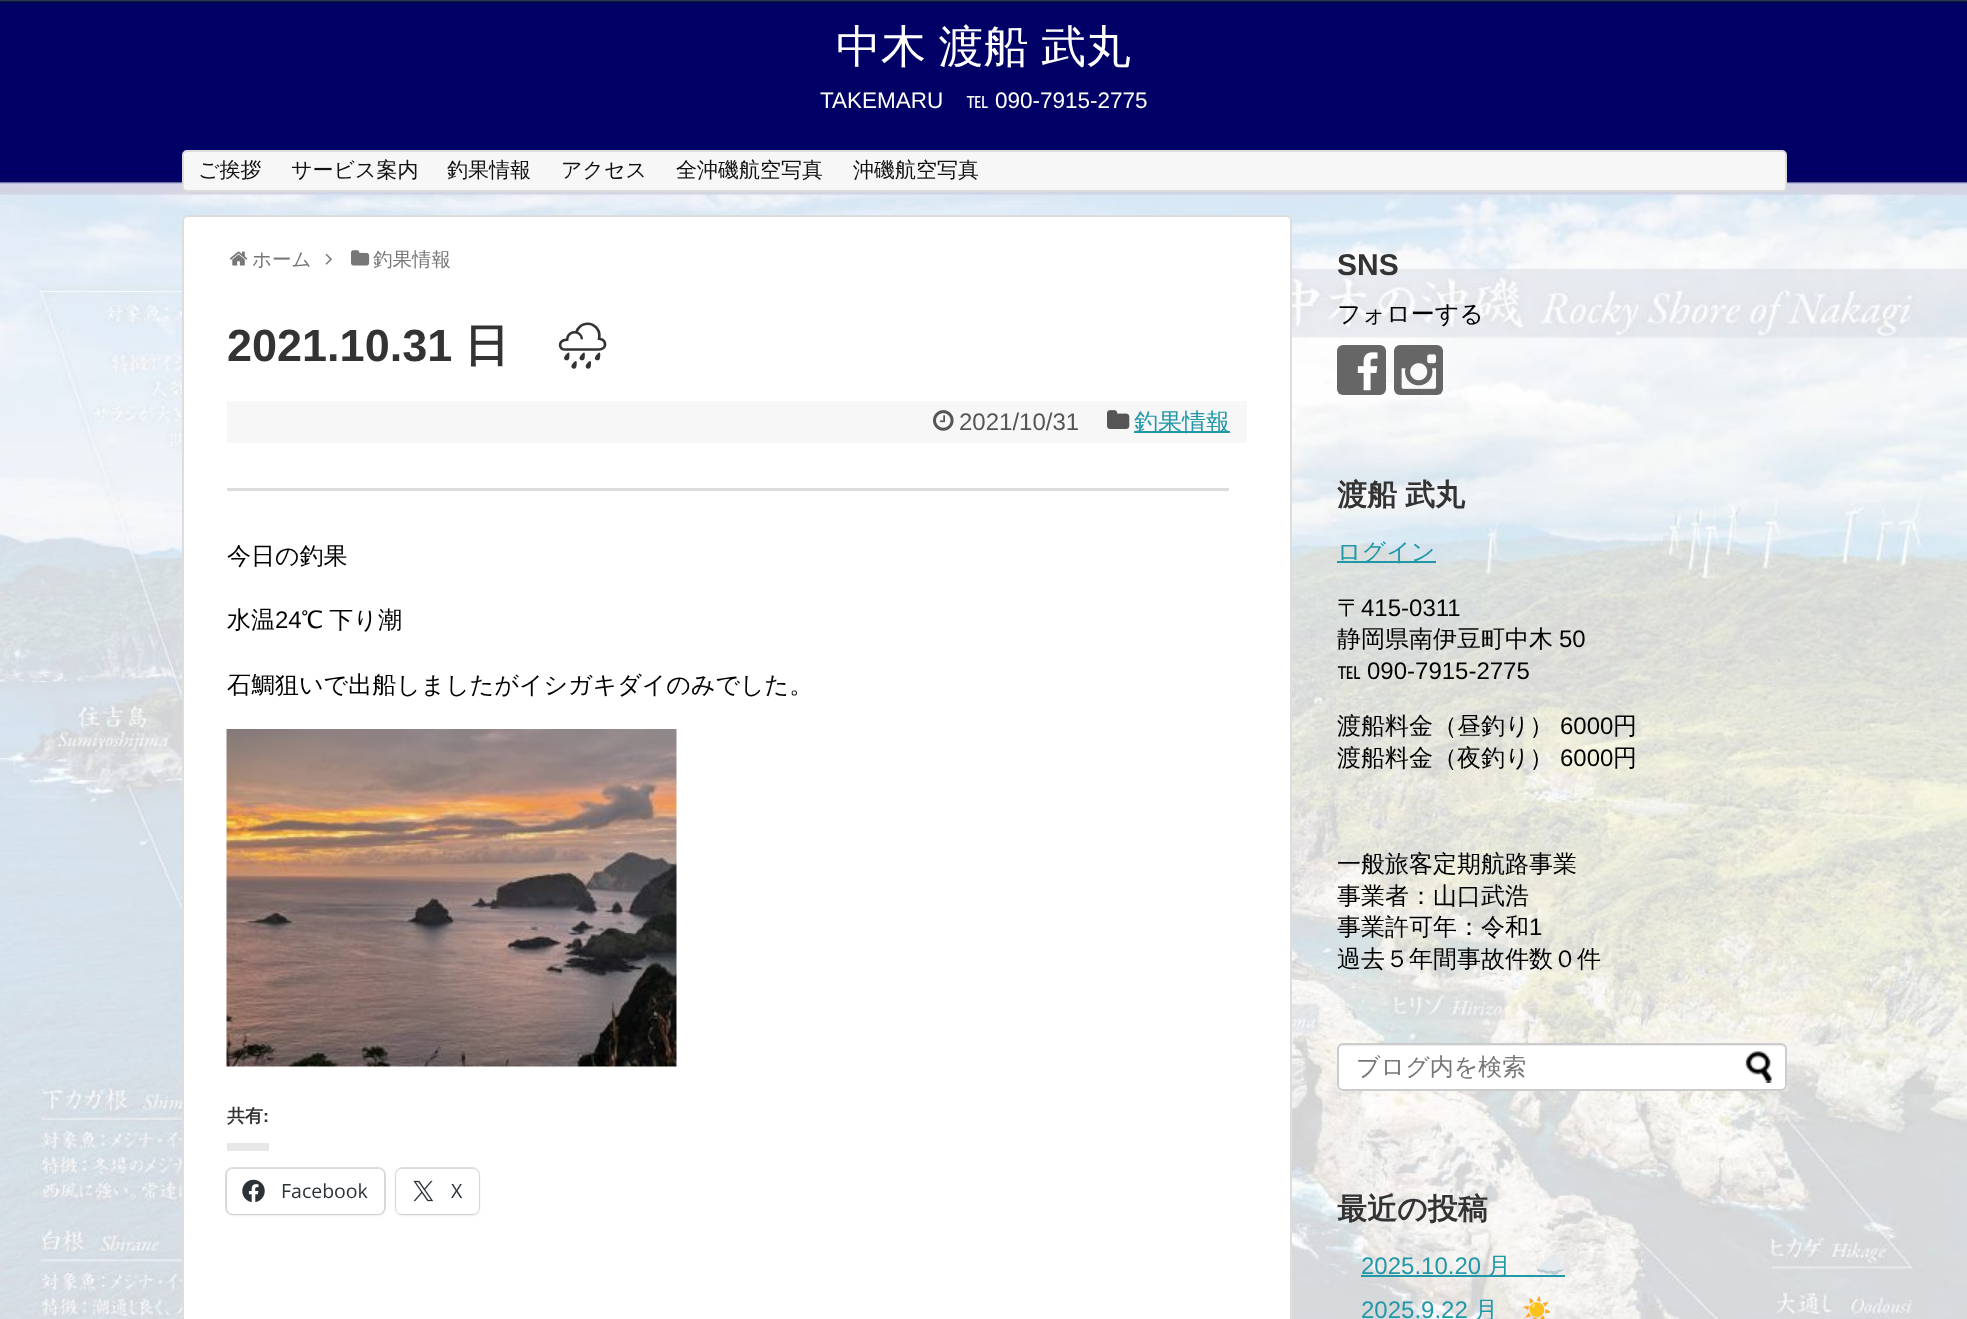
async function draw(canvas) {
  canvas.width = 1967;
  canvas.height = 1319;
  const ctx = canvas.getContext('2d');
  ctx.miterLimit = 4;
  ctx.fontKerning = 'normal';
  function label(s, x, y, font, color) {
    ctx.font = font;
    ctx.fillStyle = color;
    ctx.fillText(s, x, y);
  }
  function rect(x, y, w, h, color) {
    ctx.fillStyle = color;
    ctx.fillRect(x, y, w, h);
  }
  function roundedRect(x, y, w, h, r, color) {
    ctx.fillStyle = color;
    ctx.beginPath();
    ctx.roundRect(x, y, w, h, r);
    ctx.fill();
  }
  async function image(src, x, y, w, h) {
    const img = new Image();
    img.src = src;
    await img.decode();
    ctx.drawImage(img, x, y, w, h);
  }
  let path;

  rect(0, 0, 1967, 1319, '#fff');
  await image('assets/img1.png', 0, 0, 1967, 1319);
  ctx.wordSpacing = '-1px';
  label('中木 渡船 武丸', 836, 62, '500 45px WenQuanYi Zen Hei', '#fff');
  ctx.wordSpacing = '0px';
  label('TAKEMARU', 820, 108, '22.5px Liberation Sans', '#fff');
  label('℡', 966, 108, '500 22.5px WenQuanYi Zen Hei', '#fff');
  label('090-7915-2775', 995, 108, '22.5px Liberation Sans', '#fff');
  ctx.fillStyle = '#f7f7f7';
  ctx.beginPath();
  ctx.roundRect(183, 151, 1603, 40, 4);
  ctx.fill();
  ctx.strokeStyle = '#ddd';
  ctx.lineWidth = 2;
  ctx.stroke();
  label('ご挨拶', 198, 177, '500 21px WenQuanYi Zen Hei', '#111');
  label('サービス案内', 291, 177, '500 21px WenQuanYi Zen Hei', '#111');
  label('釣果情報', 447, 177, '500 21px WenQuanYi Zen Hei', '#111');
  label('アクセス', 561, 177, '500 21px WenQuanYi Zen Hei', '#111');
  label('全沖磯航空写真', 676, 177, '500 21px WenQuanYi Zen Hei', '#111');
  label('沖磯航空写真', 853, 177, '500 21px WenQuanYi Zen Hei', '#111');
  ctx.fillStyle = '#fff';
  ctx.beginPath();
  ctx.roundRect(183, 216, 1108, 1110, 5);
  ctx.fill();
  ctx.stroke();
  await image('assets/img2.png', 229, 251, 19, 15);
  label('ホーム', 252, 266, '500 19.5px WenQuanYi Zen Hei', '#777');
  await image('assets/img3.png', 325, 253, 7, 12);
  await image('assets/img4.png', 351, 250, 19, 16);
  label('釣果情報', 373, 266, '500 19.5px WenQuanYi Zen Hei', '#777');
  label('2021.10.31', 227, 361, 'bold 45px Liberation Sans', '#333');
  label('日', 464, 361, 'bold 45px WenQuanYi Zen Hei', '#333');
  label('🌧', 554, 361, 'bold 45px Noto Emoji', '#333');
  rect(227, 401, 1020, 42, '#f7f7f7');
  await image('assets/img5.png', 933, 410, 21, 21);
  label('2021/10/31', 959, 430, '24px Liberation Sans', '#555');
  await image('assets/img6.png', 1107, 410, 23, 19);
  rect(1134, 431, 96, 2, '#2098a8');
  label('釣果情報', 1134, 430, '500 24px WenQuanYi Zen Hei', '#2098a8');
  rect(227, 488, 1002, 3, '#ddd');
  label('今日の釣果', 227, 564, '500 24px WenQuanYi Zen Hei', '#000');
  label('水温', 227, 628, '500 24px WenQuanYi Zen Hei', '#000');
  label('24', 275, 628, '24px Liberation Sans', '#000');
  ctx.wordSpacing = '-1px';
  label('℃ 下り潮', 301, 628, '500 24px WenQuanYi Zen Hei', '#000');
  ctx.wordSpacing = '0px';
  label('石鯛狙いで出船しましたがイシガキダイのみでした。', 227, 693, '500 24px WenQuanYi Zen Hei', '#000');
  await image('assets/img7.png', 226, 729, 451, 338);
  rect(227, 1143, 42, 8, '#e7e7e7');
  label('共有', 227, 1122, 'bold 18px WenQuanYi Zen Hei', '#333');
  label(':', 263, 1122, 'bold 18px Liberation Sans', '#333');
  ctx.beginPath();
  ctx.roundRect(226, 1168, 159, 46, 7);
  ctx.strokeStyle = '#e0e0e0';
  ctx.stroke();
  ctx.fillStyle = '#0000001f';
  ctx.filter = 'blur(1.5px)';
  ctx.beginPath();
  ctx.roundRect(227, 1170, 157, 45, 6);
  ctx.fill();
  ctx.filter = 'none';
  roundedRect(227, 1169, 157, 45, 6, '#fff');
  await image('assets/img8.png', 242, 1179, 23, 24);
  label('Facebook', 281, 1198, '19.5px Open Sans', '#2c3338');
  ctx.beginPath();
  ctx.roundRect(396, 1168, 83, 46, 7);
  ctx.stroke();
  ctx.fillStyle = '#0000001f';
  ctx.filter = 'blur(1.5px)';
  ctx.beginPath();
  ctx.roundRect(396, 1170, 83, 45, 6);
  ctx.fill();
  ctx.filter = 'none';
  roundedRect(396, 1169, 83, 45, 6, '#fff');
  await image('assets/img9.png', 413, 1180, 21, 22);
  label('X', 451, 1198, '19.5px Open Sans', '#2c3338');
  label('SNS', 1337, 275, 'bold 30px Liberation Sans', '#333');
  label('フォローする', 1337, 322, '500 24px WenQuanYi Zen Hei', '#000');
  roundedRect(1337, 345, 49, 50, 6, '#666');
  await image('assets/img10.png', 1357, 352, 21, 39);
  roundedRect(1394, 345, 49, 50, 6, '#666');
  await image('assets/img11.png', 1401, 354, 36, 35);
  ctx.wordSpacing = '-1px';
  label('渡船 武丸', 1337, 505, 'bold 30px WenQuanYi Zen Hei', '#333');
  rect(1337, 561, 99, 2, '#2098a8');
  ctx.wordSpacing = '0px';
  label('ログイン', 1337, 560, '500 24px WenQuanYi Zen Hei', '#2098a8');
  label('〒', 1337, 616, '500 24px WenQuanYi Zen Hei', '#000');
  label('415-0311', 1361, 616, '24px Liberation Sans', '#000');
  label('静岡県南伊豆町中木', 1337, 647, '500 24px WenQuanYi Zen Hei', '#000');
  label('50', 1559, 647, '24px Liberation Sans', '#000');
  label('℡', 1337, 679, '500 24px WenQuanYi Zen Hei', '#000');
  label('090-7915-2775', 1367, 679, '24px Liberation Sans', '#000');
  label('渡船料金（昼釣り）', 1337, 734, '500 24px WenQuanYi Zen Hei', '#000');
  label('6000', 1560, 734, '24px Liberation Sans', '#000');
  label('円', 1613, 734, '500 24px WenQuanYi Zen Hei', '#000');
  label('渡船料金（夜釣り）', 1337, 766, '500 24px WenQuanYi Zen Hei', '#000');
  label('6000', 1560, 766, '24px Liberation Sans', '#000');
  label('円', 1613, 766, '500 24px WenQuanYi Zen Hei', '#000');
  label('一般旅客定期航路事業', 1337, 872, '500 24px WenQuanYi Zen Hei', '#000');
  label('事業者：山口武浩', 1337, 904, '500 24px WenQuanYi Zen Hei', '#000');
  label('事業許可年：令和', 1337, 935, '500 24px WenQuanYi Zen Hei', '#000');
  label('1', 1529, 935, '24px Liberation Sans', '#000');
  label('過去５年間事故件数０件', 1337, 967, '500 24px WenQuanYi Zen Hei', '#000');
  roundedRect(1337, 1043, 450, 48, 6, '#fff');
  ctx.fillStyle = '#ececec';
  path = new Path2D('M1342 1046H1780C1783 1046 1785 1048 1785 1050C1785 1047 1783 1044 1780 1044H1343C1340 1044 1338 1047 1338 1050C1338 1048 1340 1046 1342 1046Z');
  ctx.fill(path);
  ctx.beginPath();
  ctx.roundRect(1338, 1044, 448, 46, 5);
  ctx.strokeStyle = '#ccc';
  ctx.stroke();
  label('ブログ内を検索', 1356, 1075, '500 24px WenQuanYi Zen Hei', '#777');
  await image('assets/img12.png', 1745, 1051, 27, 32);
  label('最近の投稿', 1337, 1219, 'bold 30px WenQuanYi Zen Hei', '#333');
  label('2025.10.20', 1361, 1274, '24px Liberation Sans', '#2098a8');
  rect(1361, 1275, 204, 2, '#2098a8');
  label('月', 1487, 1274, '500 24px WenQuanYi Zen Hei', '#2098a8');
  label('☁️', 1535, 1274, '24px Noto Color Emoji', '#2098a8');
  label('2025.9.22', 1361, 1318, '24px Liberation Sans', '#2098a8');
  label('月', 1474, 1318, '500 24px WenQuanYi Zen Hei', '#2098a8');
  label('☀️', 1522, 1318, '24px Noto Color Emoji', '#2098a8');
}

draw(document.querySelector('canvas'));
